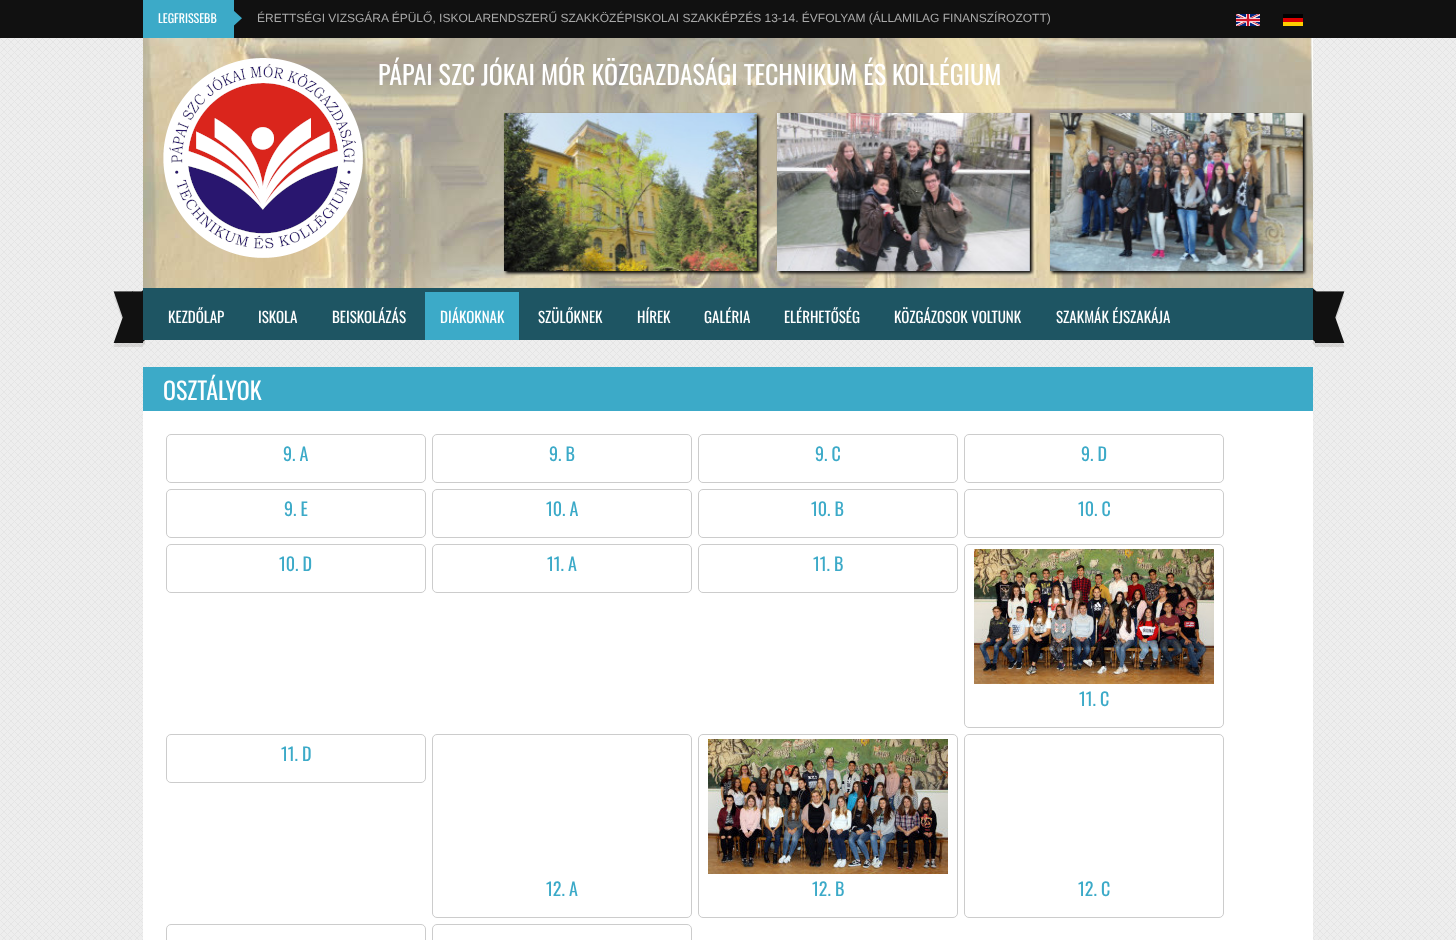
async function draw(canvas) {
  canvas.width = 1456;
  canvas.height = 940;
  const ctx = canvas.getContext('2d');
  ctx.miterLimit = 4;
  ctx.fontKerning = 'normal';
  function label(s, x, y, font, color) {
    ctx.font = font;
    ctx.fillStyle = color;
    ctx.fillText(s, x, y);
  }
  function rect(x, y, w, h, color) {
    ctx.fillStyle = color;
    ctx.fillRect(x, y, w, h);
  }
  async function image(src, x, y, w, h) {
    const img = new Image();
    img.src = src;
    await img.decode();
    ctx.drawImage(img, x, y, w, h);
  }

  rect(0, 0, 1456, 940, '#eee');
  await image('assets/img1.png', 0, 38, 1456, 902);
  rect(0, 0, 1456, 38, '#111');
  await image('assets/img2.png', 143, 0, 99, 38);
  label('LEGFRISSEBB', 158, 23, '12px Oswald', '#fff');
  label('ÉRETTSÉGI VIZSGÁRA ÉPÜLŐ, ISKOLARENDSZERŰ SZAKKÖZÉPISKOLAI SZAKKÉPZÉS 13-14. ÉVFOLYAM (ÁLLAMILAG FINANSZÍROZOTT)', 257, 22, '12px Liberation Sans', '#aaa');
  await image('assets/img3.png', 1236, 14, 24, 12);
  await image('assets/img4.png', 1283, 14, 20, 12);
  await image('assets/img5.png', 143, 38, 1170, 250);
  ctx.fillStyle = '#000';
  ctx.filter = 'blur(1.5px)';
  ctx.beginPath();
  ctx.rect(506, 115, 253, 158);
  ctx.fill();
  ctx.filter = 'none';
  await image('assets/img6.png', 504, 113, 253, 159);
  ctx.filter = 'blur(1.5px)';
  ctx.beginPath();
  ctx.rect(779, 115, 253, 158);
  ctx.fill();
  ctx.filter = 'none';
  await image('assets/img7.png', 777, 113, 253, 159);
  ctx.filter = 'blur(1.5px)';
  ctx.beginPath();
  ctx.rect(1052, 115, 253, 158);
  ctx.fill();
  ctx.filter = 'none';
  await image('assets/img8.png', 1050, 113, 253, 159);
  await image('assets/img9.png', 163, 58, 200, 200);
  label('PÁPAI SZC JÓKAI MÓR KÖZGAZDASÁGI TECHNIKUM ÉS KOLLÉGIUM', 378, 85, '26px Oswald', '#fff');
  await image('assets/img10.png', 113, 290, 32, 57);
  await image('assets/img11.png', 1313, 288, 32, 59);
  rect(143, 288, 1170, 52, '#1e5563');
  label('KEZDŐLAP', 168, 323, '15px Oswald', '#fff');
  label('ISKOLA', 258, 323, '15px Oswald', '#fff');
  label('BEISKOLÁZÁS', 332, 323, '15px Oswald', '#fff');
  rect(425, 292, 94, 48, '#3caac8');
  label('DIÁKOKNAK', 440, 323, '15px Oswald', '#fff');
  label('SZÜLŐKNEK', 538, 323, '15px Oswald', '#fff');
  label('HÍREK', 637, 323, '15px Oswald', '#fff');
  label('GALÉRIA', 704, 323, '15px Oswald', '#fff');
  label('ELÉRHETŐSÉG', 784, 323, '15px Oswald', '#fff');
  label('KÖZGÁZOSOK VOLTUNK', 894, 323, '15px Oswald', '#fff');
  label('SZAKMÁK ÉJSZAKÁJA', 1056, 323, '15px Oswald', '#fff');
  rect(143, 411, 1170, 529, '#fff');
  rect(143, 367, 1170, 44, '#3caac8');
  label('OSZTÁLYOK', 163, 400, '24px Oswald', '#fff');
  ctx.beginPath();
  ctx.roundRect(166.5, 434.5, 259, 48, 4.5);
  ctx.strokeStyle = '#ccc';
  ctx.stroke();
  label('9. A', 283, 461, '18px Oswald', '#3caac8');
  ctx.beginPath();
  ctx.roundRect(432.5, 434.5, 259, 48, 4.5);
  ctx.stroke();
  label('9. B', 549, 461, '18px Oswald', '#3caac8');
  ctx.beginPath();
  ctx.roundRect(698.5, 434.5, 259, 48, 4.5);
  ctx.stroke();
  label('9. C', 815, 461, '18px Oswald', '#3caac8');
  ctx.beginPath();
  ctx.roundRect(964.5, 434.5, 259, 48, 4.5);
  ctx.stroke();
  label('9. D', 1081, 461, '18px Oswald', '#3caac8');
  ctx.beginPath();
  ctx.roundRect(166.5, 489.5, 259, 48, 4.5);
  ctx.stroke();
  label('9. E', 284, 516, '18px Oswald', '#3caac8');
  ctx.beginPath();
  ctx.roundRect(432.5, 489.5, 259, 48, 4.5);
  ctx.stroke();
  label('10. A', 546, 516, '18px Oswald', '#3caac8');
  ctx.beginPath();
  ctx.roundRect(698.5, 489.5, 259, 48, 4.5);
  ctx.stroke();
  label('10. B', 811, 516, '18px Oswald', '#3caac8');
  ctx.beginPath();
  ctx.roundRect(964.5, 489.5, 259, 48, 4.5);
  ctx.stroke();
  label('10. C', 1078, 516, '18px Oswald', '#3caac8');
  ctx.beginPath();
  ctx.roundRect(166.5, 544.5, 259, 48, 4.5);
  ctx.stroke();
  label('10. D', 279, 571, '18px Oswald', '#3caac8');
  ctx.beginPath();
  ctx.roundRect(432.5, 544.5, 259, 48, 4.5);
  ctx.stroke();
  label('11. A', 547, 571, '18px Oswald', '#3caac8');
  ctx.beginPath();
  ctx.roundRect(698.5, 544.5, 259, 48, 4.5);
  ctx.stroke();
  label('11. B', 813, 571, '18px Oswald', '#3caac8');
  ctx.beginPath();
  ctx.roundRect(964.5, 544.5, 259, 183, 4.5);
  ctx.stroke();
  await image('assets/img12.png', 974, 549, 240, 135);
  label('11. C', 1079, 706, '18px Oswald', '#3caac8');
  ctx.beginPath();
  ctx.roundRect(166.5, 734.5, 259, 48, 4.5);
  ctx.stroke();
  label('11. D', 281, 761, '18px Oswald', '#3caac8');
  ctx.beginPath();
  ctx.roundRect(432.5, 734.5, 259, 183, 4.5);
  ctx.stroke();
  label('12. A', 546, 896, '18px Oswald', '#3caac8');
  ctx.beginPath();
  ctx.roundRect(698.5, 734.5, 259, 183, 4.5);
  ctx.stroke();
  await image('assets/img13.png', 708, 739, 240, 135);
  label('12. B', 812, 896, '18px Oswald', '#3caac8');
  ctx.beginPath();
  ctx.roundRect(964.5, 734.5, 259, 183, 4.5);
  ctx.stroke();
  label('12. C', 1078, 896, '18px Oswald', '#3caac8');
  ctx.beginPath();
  ctx.roundRect(166.5, 924.5, 259, 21, 4.5);
  ctx.stroke();
  ctx.beginPath();
  ctx.roundRect(432.5, 924.5, 259, 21, 4.5);
  ctx.stroke();
}

draw(document.querySelector('canvas'));
